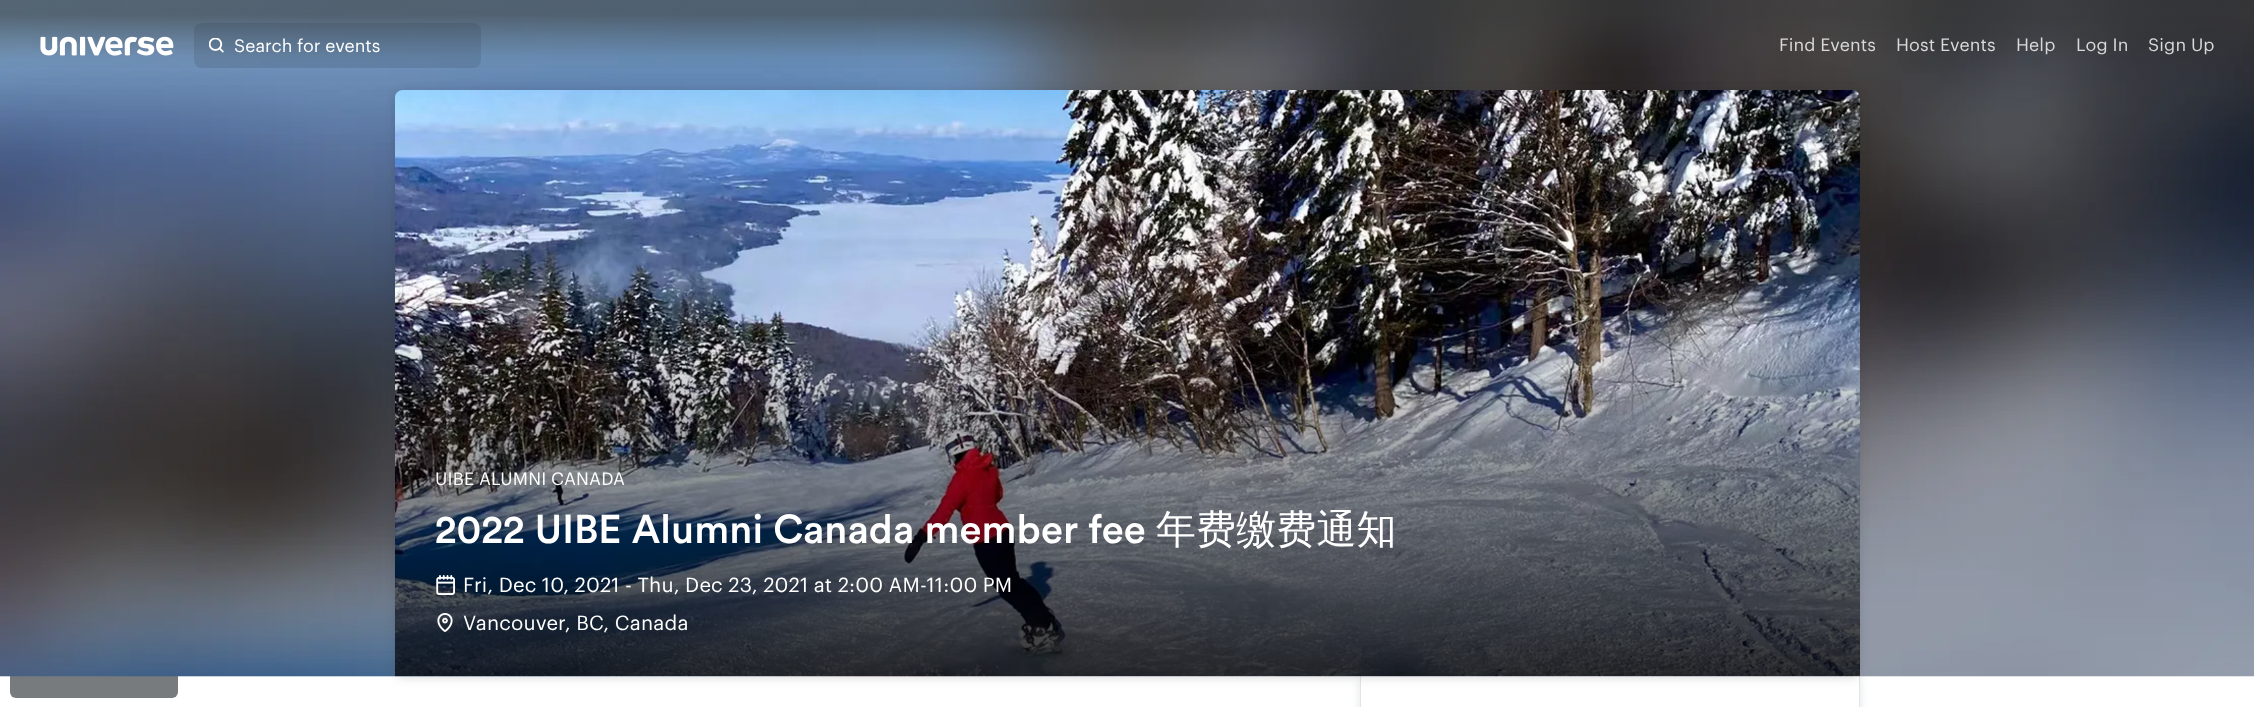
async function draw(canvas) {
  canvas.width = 2254;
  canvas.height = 707;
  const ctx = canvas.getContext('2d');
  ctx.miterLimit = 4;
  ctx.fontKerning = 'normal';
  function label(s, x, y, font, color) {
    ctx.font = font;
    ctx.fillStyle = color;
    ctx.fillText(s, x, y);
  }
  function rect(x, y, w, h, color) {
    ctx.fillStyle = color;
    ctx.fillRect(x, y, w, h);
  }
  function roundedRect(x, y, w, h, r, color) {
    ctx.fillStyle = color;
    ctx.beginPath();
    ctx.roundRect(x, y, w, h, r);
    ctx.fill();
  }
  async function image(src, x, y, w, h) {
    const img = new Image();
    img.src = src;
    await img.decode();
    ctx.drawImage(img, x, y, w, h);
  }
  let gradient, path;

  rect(0, 0, 2254, 707, '#fff');
  ctx.fillStyle = '#e2e5e7';
  ctx.filter = 'blur(5px)';
  ctx.beginPath();
  ctx.roundRect(1360, 676, 500, 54, 8);
  ctx.fill();
  ctx.filter = 'none';
  rect(1361, 676, 498, 31, '#fff');
  ctx.fillStyle = '#e2e5e7';
  path = new Path2D('M1360 676H1860V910C1860 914 1857 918 1852 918H1368C1363 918 1360 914 1360 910ZM1361 676H1859V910C1859 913 1856 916 1852 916H1368C1364 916 1361 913 1361 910Z');
  ctx.fill(path, 'evenodd');
  roundedRect(10, 653, 168, 45, 6, '#777b7e');
  await image('assets/img3.png', 0, 0, 2254, 677);
  gradient = ctx.createLinearGradient(1128, 0, 1128, 90);
  gradient.addColorStop(0.16, '#3a3a3a99');
  gradient.addColorStop(0.65, '#3a3a3a0f');
  gradient.addColorStop(0.81, '#3a3a3a00');
  ctx.fillStyle = gradient;
  ctx.fillRect(0, 0, 2254, 68);
  await image('assets/img1.png', 40, 36, 134, 20);
  roundedRect(194, 23, 287, 45, 8, '#1c232b1f');
  await image('assets/img2.png', 209, 38, 15, 15);
  label('Search for events', 234, 52, '17.5px Graphik', '#fff');
  ctx.letterSpacing = '0.12px';
  label('Find Events', 1779, 51, '17.5px Graphik', '#dad9d9');
  label('Host Events', 1896, 51, '17.5px Graphik', '#dad9d9');
  label('Help', 2016, 51, '17.5px Graphik', '#dad9d9');
  label('Log In', 2076, 51, '17.5px Graphik', '#dad9d9');
  label('Sign Up', 2148, 51, '17.5px Graphik', '#dad9d9');
  ctx.fillStyle = '#1c232b26';
  ctx.filter = 'blur(5px)';
  ctx.beginPath();
  ctx.roundRect(395, 91, 1465, 587, 8);
  ctx.fill();
  ctx.filter = 'none';
  await image('assets/img4.png', 395, 90, 1465, 587);
  label('UIBE ALUMNI CANADA', 435, 485, '17.5px Graphik', '#fff');
  label('2022 UIBE Alumni Canada member fee', 435, 543, '500 40px Circular', '#fff');
  label('年费缴费通知', 1156, 543, '500 40px WenQuanYi Zen Hei', '#fff');
  await image('assets/img5.png', 436, 575, 19, 20);
  label('Fri, Dec 10, 2021 - Thu, Dec 23, 2021 at 2:00 AM-11:00 PM', 463, 592, '20px Graphik', '#fff');
  await image('assets/img6.png', 437, 613, 16, 19);
  label('Vancouver, BC, Canada', 463, 630, '20px Graphik', '#fff');
}

draw(document.querySelector('canvas'));
